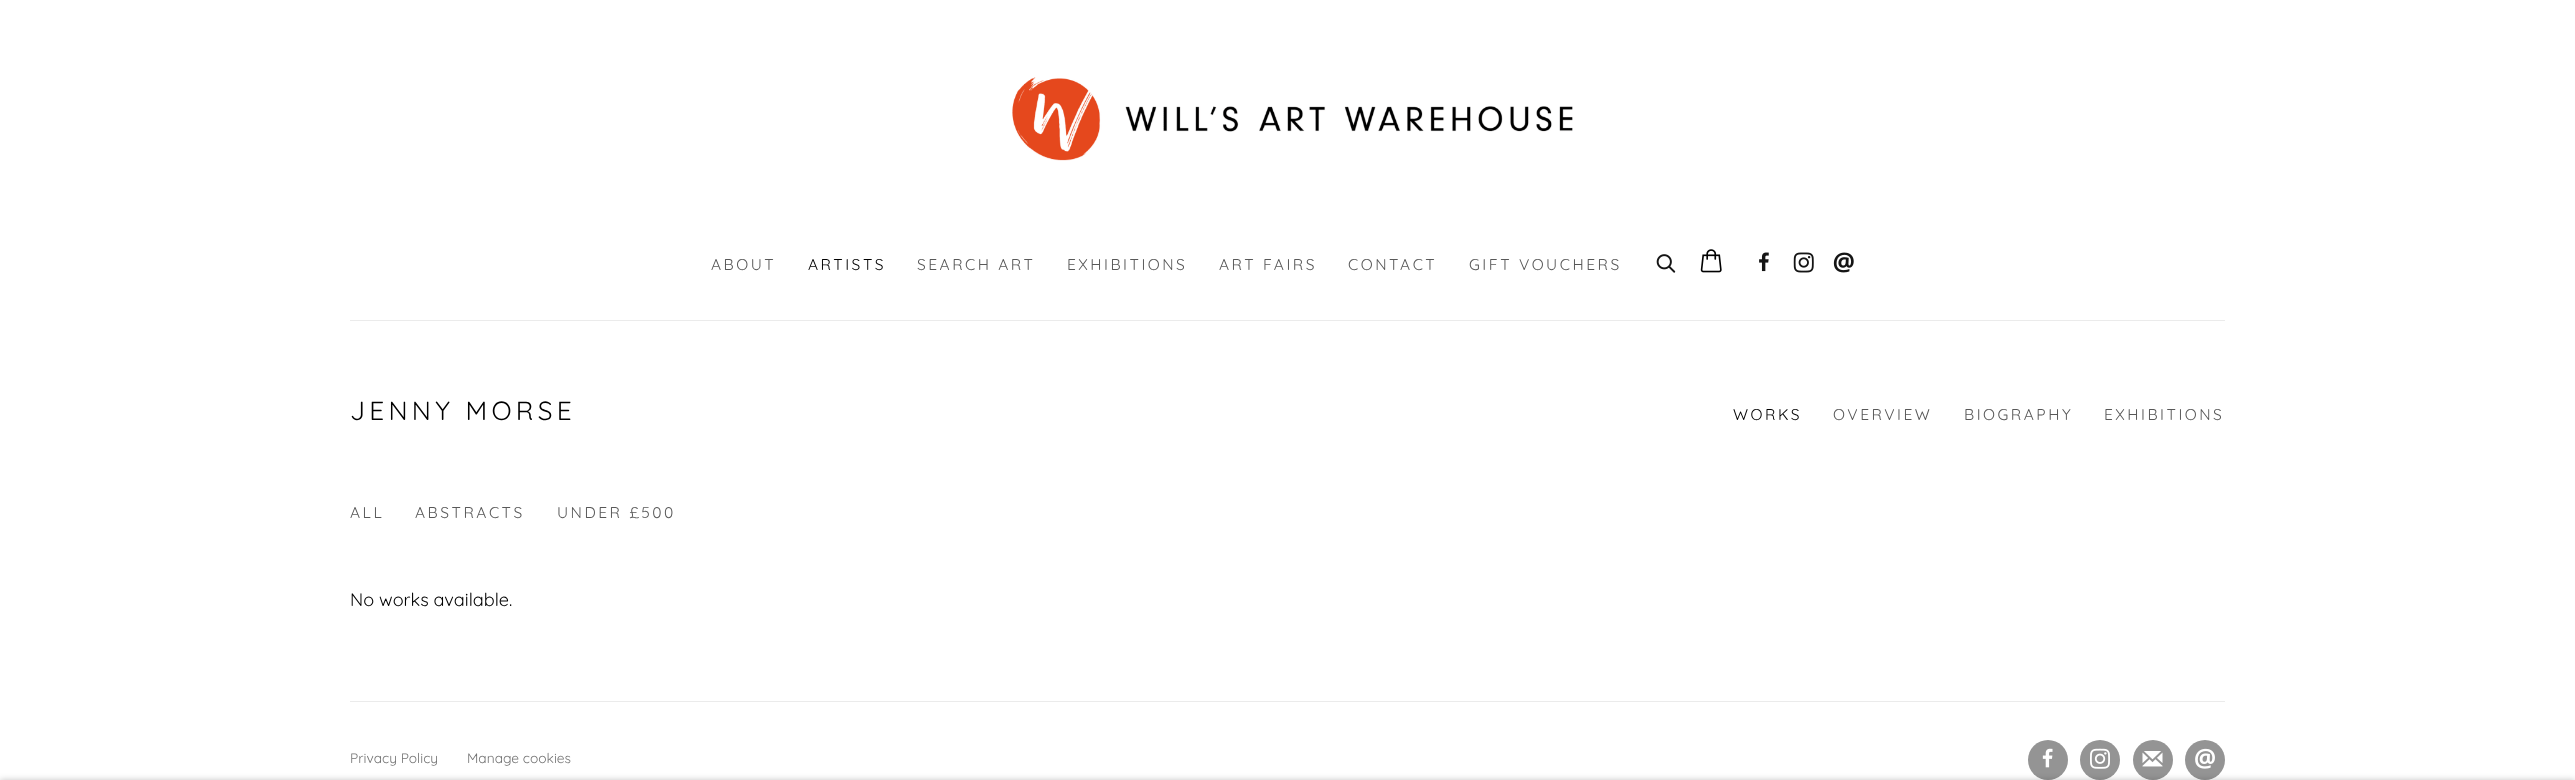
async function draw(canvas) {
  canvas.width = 2575;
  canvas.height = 780;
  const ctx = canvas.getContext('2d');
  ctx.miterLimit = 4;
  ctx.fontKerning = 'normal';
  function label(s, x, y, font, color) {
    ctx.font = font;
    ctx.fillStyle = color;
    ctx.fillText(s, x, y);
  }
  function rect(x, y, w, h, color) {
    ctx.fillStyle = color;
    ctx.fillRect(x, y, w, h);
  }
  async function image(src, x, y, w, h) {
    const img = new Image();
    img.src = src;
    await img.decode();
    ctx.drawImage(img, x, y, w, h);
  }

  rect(0, 0, 2575, 780, '#fff');
  rect(350, 320, 1875, 1, '#ebebeb');
  await image('assets/img1.png', 1012, 77, 561, 84);
  ctx.letterSpacing = '2.5px';
  label('ABOUT', 711, 270, '300 15.6px Quicksand', '#585858');
  label('ARTISTS', 808, 270, '300 15.6px Quicksand', '#000');
  label('SEARCH ART', 917, 270, '300 15.6px Quicksand', '#585858');
  label('EXHIBITIONS', 1067, 270, '300 15.6px Quicksand', '#585858');
  label('ART FAIRS', 1219, 270, '300 15.6px Quicksand', '#585858');
  label('CONTACT', 1348, 270, '300 15.6px Quicksand', '#585858');
  label('GIFT VOUCHERS', 1469, 270, '300 15.6px Quicksand', '#585858');
  await image('assets/img2.png', 1656, 254, 20, 19);
  await image('assets/img3.png', 1700, 249, 22, 24);
  await image('assets/img4.png', 1759, 252, 10, 20);
  await image('assets/img5.png', 1793, 252, 21, 21);
  await image('assets/img6.png', 1833, 252, 21, 21);
  ctx.letterSpacing = '4.25px';
  label('JENNY MORSE', 350, 420, '300 26.25px Quicksand', '#000');
  ctx.letterSpacing = '2.5px';
  label('WORKS', 1733, 420, '300 15.6px Quicksand', '#000');
  label('OVERVIEW', 1833, 420, '300 15.6px Quicksand', '#585858');
  label('BIOGRAPHY', 1964, 420, '300 15.6px Quicksand', '#585858');
  label('EXHIBITIONS', 2104, 420, '300 15.6px Quicksand', '#585858');
  label('ALL', 350, 518, '300 15.6px Quicksand', '#585858');
  label('ABSTRACTS', 415, 518, '300 15.6px Quicksand', '#585858');
  label('UNDER £500', 557, 518, '300 15.6px Quicksand', '#585858');
  ctx.letterSpacing = '0px';
  label('No works available.', 350, 606, '300 18.1px Quicksand', '#000');
  rect(350, 701, 1875, 1, '#ebebeb');
  label('Privacy Policy', 350, 763, '300 13.75px Quicksand', '#737373');
  label('Manage cookies', 467, 763, '300 13.75px Quicksand', '#737373');
  ctx.fillStyle = '#949494';
  ctx.beginPath();
  ctx.arc(2048, 760, 20, 0, 2 * Math.PI);
  ctx.fill();
  await image('assets/img7.png', 2042, 748, 11, 20);
  ctx.beginPath();
  ctx.arc(2100, 760, 20, 0, 2 * Math.PI);
  ctx.fill();
  await image('assets/img8.png', 2090, 748, 20, 21);
  ctx.beginPath();
  ctx.arc(2153, 760, 20, 0, 2 * Math.PI);
  ctx.fill();
  await image('assets/img9.png', 2142, 751, 21, 16);
  ctx.beginPath();
  ctx.arc(2205, 760, 20, 0, 2 * Math.PI);
  ctx.fill();
  await image('assets/img10.png', 2195, 748, 20, 21);
  ctx.fillStyle = '#0000003b';
  ctx.filter = 'blur(3px)';
  ctx.beginPath();
  ctx.rect(0, 780, 2575, 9);
  ctx.fill();
  ctx.filter = 'none';
}

draw(document.querySelector('canvas'));
